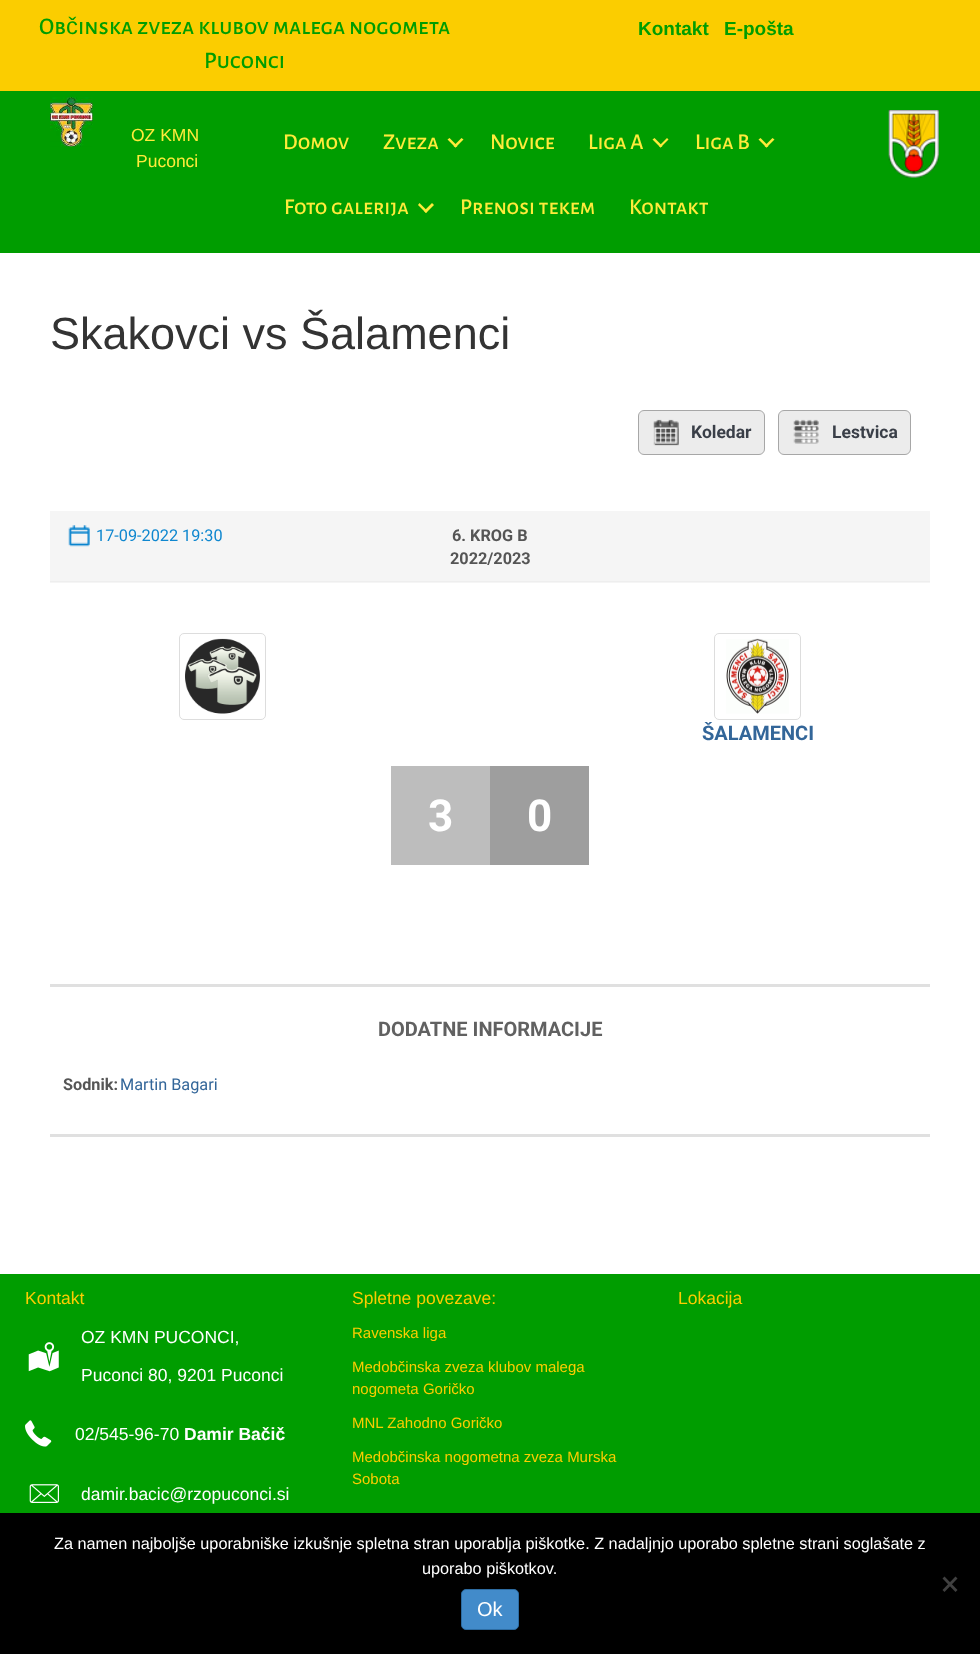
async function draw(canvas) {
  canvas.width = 980;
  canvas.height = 1654;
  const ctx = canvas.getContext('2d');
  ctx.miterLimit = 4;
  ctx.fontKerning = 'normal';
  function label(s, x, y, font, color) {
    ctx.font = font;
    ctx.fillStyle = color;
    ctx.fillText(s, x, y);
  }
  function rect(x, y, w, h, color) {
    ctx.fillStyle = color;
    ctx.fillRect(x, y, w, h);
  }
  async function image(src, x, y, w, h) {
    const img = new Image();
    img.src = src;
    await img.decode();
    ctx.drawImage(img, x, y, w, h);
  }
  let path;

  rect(0, 0, 980, 1654, '#fff');
  rect(0, 0, 980, 91, '#fbcd00');
  label('Ob', 39, 34, '500 23.75px Alegreya Sans SC', '#009d00');
  label('č', 66, 34, '23.75px Liberation Sans', '#009d00');
  label('inska zveza klubov malega nogometa', 78, 34, '500 23.75px Alegreya Sans SC', '#009d00');
  label('Puconci', 204, 68, '500 23.75px Alegreya Sans SC', '#009d00');
  label('Kontakt', 638, 35, 'bold 19px Liberation Sans', '#009d00');
  label('E-pošta', 724, 35, 'bold 19px Liberation Sans', '#009d00');
  rect(0, 91, 980, 162, '#009d00');
  await image('assets/img1.png', 50, 97, 43, 50);
  label('OZ KMN', 131, 141, '17.5px Liberation Sans', '#ffeb3b');
  label('Puconci', 136, 167, '17.5px Liberation Sans', '#ffeb3b');
  label('Domov', 283, 149, '500 22.5px Alegreya Sans SC', '#ffeb3b');
  label('Zveza', 383, 149, '500 22.5px Alegreya Sans SC', '#ffeb3b');
  path = new Path2D('M461.5 138L463.5 139.5L455.5 147.5L453.5 146Z');
  ctx.fill(path);
  path = new Path2D('M449.5 138L457.5 146L455.5 147.5L447.5 139.5Z');
  ctx.fill(path);
  label('Novice', 490, 149, '500 22.5px Alegreya Sans SC', '#ffeb3b');
  label('Liga A', 588, 149, '500 22.5px Alegreya Sans SC', '#ffeb3b');
  path = new Path2D('M667 138L668.5 139.5L660.5 147.5L659 146Z');
  ctx.fill(path);
  path = new Path2D('M654.5 138L662.5 146L660.5 147.5L652.5 139.5Z');
  ctx.fill(path);
  label('Liga B', 695, 149, '500 22.5px Alegreya Sans SC', '#ffeb3b');
  path = new Path2D('M772.5 138L774.5 139.5L766.5 147.5L764.5 146Z');
  ctx.fill(path);
  path = new Path2D('M760.5 138L768.5 146L766.5 147.5L758.5 139.5Z');
  ctx.fill(path);
  label('Foto galerija', 284, 214, '500 22.5px Alegreya Sans SC', '#ffeb3b');
  path = new Path2D('M432 203L434 205L426 213L424 211Z');
  ctx.fill(path);
  path = new Path2D('M419.5 203L427.5 211L426 213L418 205Z');
  ctx.fill(path);
  label('Prenosi tekem', 460, 214, '500 22.5px Alegreya Sans SC', '#ffeb3b');
  label('Kontakt', 629, 214, '500 22.5px Alegreya Sans SC', '#ffeb3b');
  await image('assets/img2.png', 888, 110, 51, 68);
  label('Skakovci vs Šalamenci', 50, 349, '45px Liberation Sans', '#333');
  ctx.fillStyle = '#ececec';
  ctx.beginPath();
  ctx.roundRect(638.5, 410.5, 126, 44, 5.5);
  ctx.fill();
  ctx.strokeStyle = '#a7a7a7';
  ctx.stroke();
  await image('assets/img3.png', 653, 419, 26, 27);
  label('Koledar', 691, 438, 'bold 17.5px Roboto', '#3a3f48');
  ctx.fillStyle = '#ececec';
  ctx.beginPath();
  ctx.roundRect(778.5, 410.5, 132, 44, 5.5);
  ctx.fill();
  ctx.stroke();
  await image('assets/img4.png', 793, 419, 26, 25);
  label('Lestvica', 832, 438, 'bold 17.5px Roboto', '#3a3f48');
  rect(50, 511, 880, 72, '#f5f5f5');
  rect(50, 581, 880, 1, '#eee');
  await image('assets/img5.png', 68, 525, 22, 22);
  label('17-09-2022 19:30', 96, 541, '16.25px Roboto', '#0f87cf');
  label('6. KROG B', 452, 541, 'bold 16.25px Roboto', '#555');
  label('2022/2023', 450, 564, 'bold 16.25px Roboto', '#555');
  ctx.beginPath();
  ctx.roundRect(179.5, 633.5, 86, 86, 4.5);
  ctx.strokeStyle = '#ddd';
  ctx.stroke();
  await image('assets/img6.png', 185, 638, 75, 76);
  ctx.beginPath();
  ctx.roundRect(714.5, 633.5, 86, 86, 4.5);
  ctx.stroke();
  await image('assets/img7.png', 726, 638, 63, 76);
  label('ŠALAMENCI', 702, 740, 'bold 20px Roboto', '#369');
  rect(391, 766, 99, 99, '#bdbdbd');
  label('3', 428, 831, 'bold 44px Roboto', '#fff');
  rect(490, 766, 99, 99, '#9e9e9e');
  label('0', 527, 831, 'bold 44px Roboto', '#fff');
  rect(50, 984, 880, 3, '#e0e0e0');
  rect(50, 1134, 880, 3, '#e0e0e0');
  label('DODATNE INFORMACIJE', 378, 1036, 'bold 20px Roboto', '#616161');
  label('Sodnik:', 63, 1090, 'bold 16.25px Roboto', '#555');
  label('Martin Bagari', 120, 1090, '16.25px Roboto', '#369');
  rect(0, 1274, 980, 239, '#009d00');
  label('Kontakt', 25, 1304, '17.5px Liberation Sans', '#fbcd00');
  label('Spletne povezave:', 352, 1304, '17.5px Liberation Sans', '#fbcd00');
  label('Lokacija', 678, 1304, '17.5px Liberation Sans', '#fbcd00');
  await image('assets/img8.png', 28, 1342, 31, 30);
  label('OZ KMN PUCONCI,', 81, 1343, '17.5px Liberation Sans', '#fff');
  label('Puconci 80, 9201 Puconci', 81, 1381, '17.5px Liberation Sans', '#fff');
  await image('assets/img9.png', 25, 1420, 27, 27);
  label('02/545-96-70', 75, 1440, '17.5px Liberation Sans', '#fff');
  label('Damir Bačič', 184, 1440, 'bold 17.5px Liberation Sans', '#fff');
  await image('assets/img10.png', 29, 1484, 30, 19);
  label('damir.bacic@rzopuconci.si', 81, 1500, '17.5px Liberation Sans', '#fff');
  label('Ravenska liga', 352, 1338, '15px Liberation Sans', '#fbcd00');
  label('Medobčinska zveza klubov malega', 352, 1372, '15px Liberation Sans', '#fbcd00');
  label('nogometa Goričko', 352, 1394, '15px Liberation Sans', '#fbcd00');
  label('MNL Zahodno Goričko', 352, 1428, '15px Liberation Sans', '#fbcd00');
  label('Medobčinska nogometna zveza Murska', 352, 1462, '15px Liberation Sans', '#fbcd00');
  label('Sobota', 352, 1484, '15px Liberation Sans', '#fbcd00');
  rect(0, 1513, 980, 141, '#000');
  label('Za namen najboljše uporabniške izkušnje spletna stran uporablja piškotke. Z nadaljnjo uporabo spletne strani soglašate z', 54, 1549, '16.25px Liberation Sans', '#fff');
  label('uporabo piškotkov.', 422, 1574, '16.25px Liberation Sans', '#fff');
  ctx.fillStyle = '#404040';
  path = new Path2D('M955.5 1576.5L957.5 1578.5L944.5 1592L942.5 1590Z');
  ctx.fill(path);
  path = new Path2D('M942.5 1578.5L944.5 1576.5L957.5 1590L955.5 1592Z');
  ctx.fill(path);
  ctx.fillStyle = '#428bca';
  ctx.beginPath();
  ctx.roundRect(461.5, 1589.5, 57, 40, 4.5);
  ctx.fill();
  ctx.strokeStyle = '#2d6ca2';
  ctx.stroke();
  label('Ok', 477, 1616, '20px Liberation Sans', '#fff');
}

draw(document.querySelector('canvas'));
